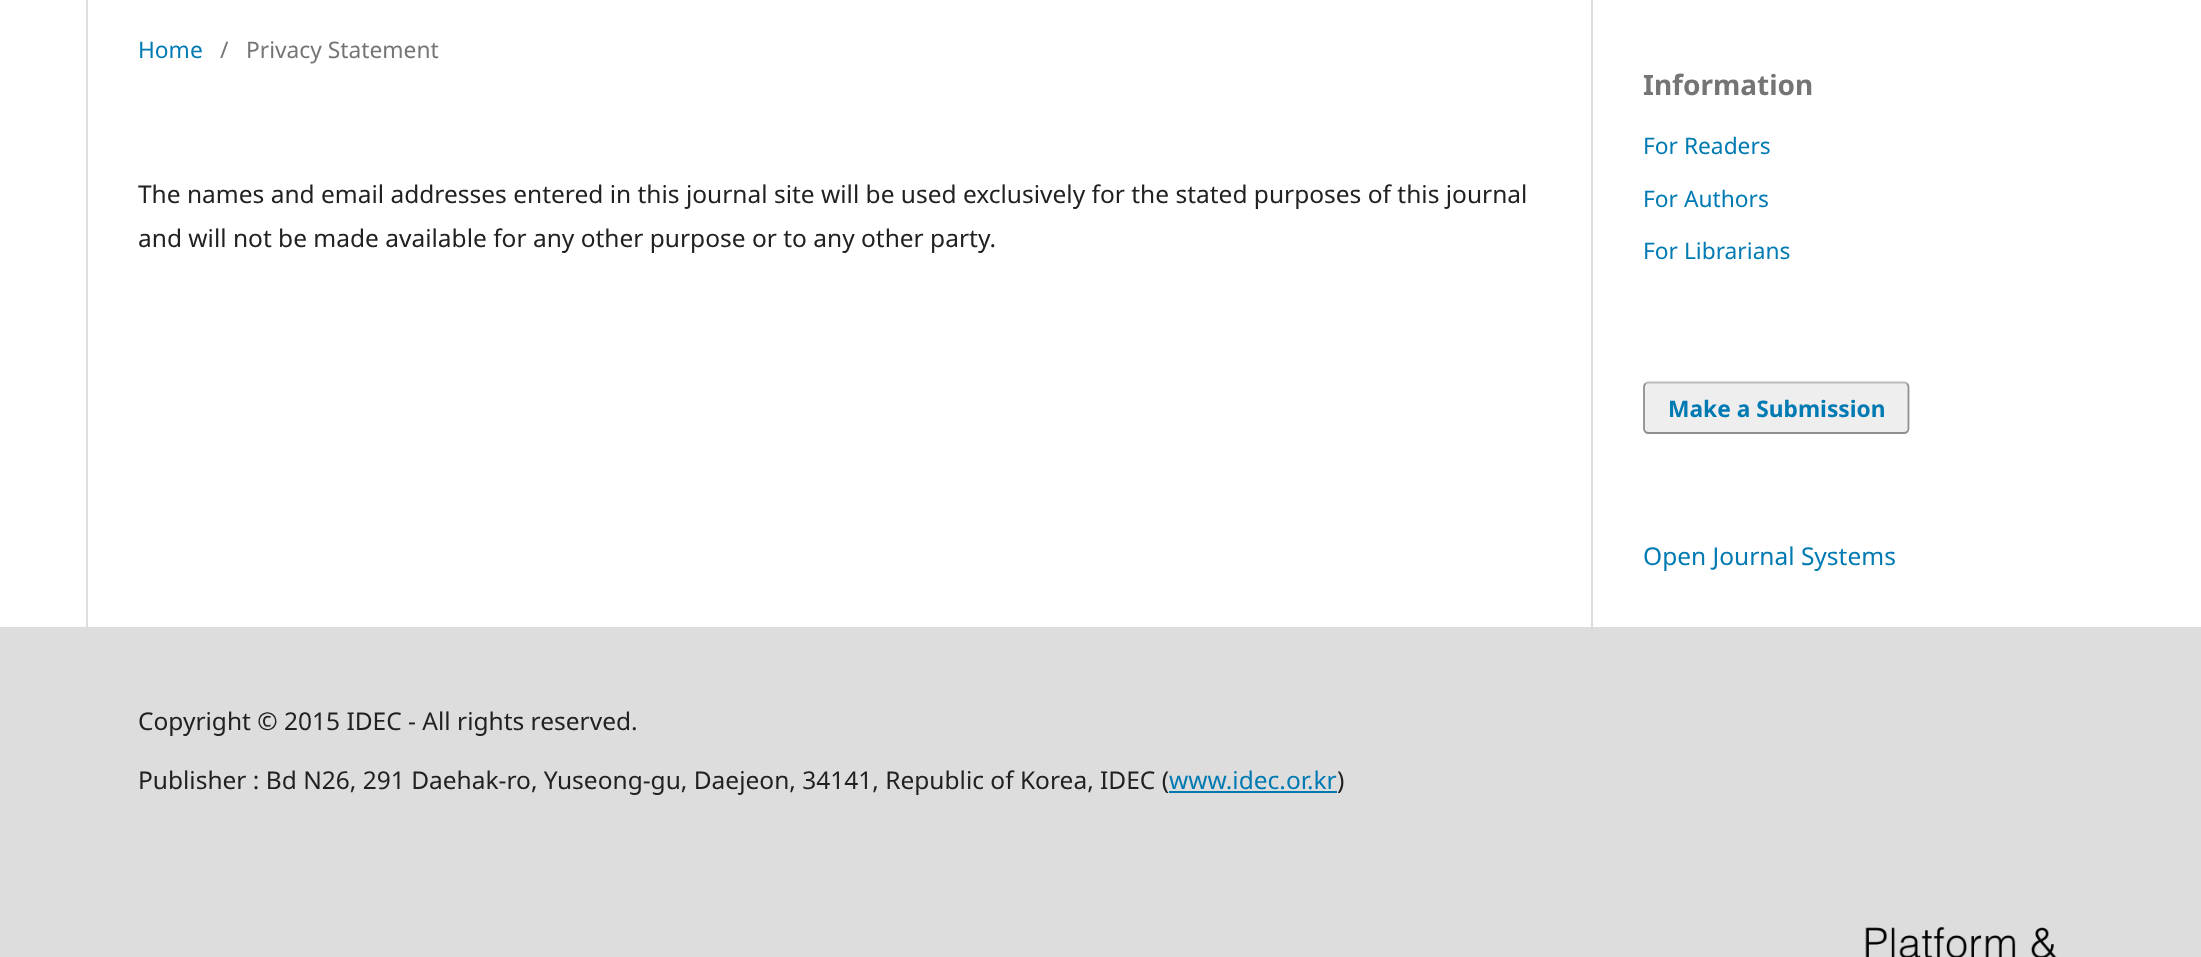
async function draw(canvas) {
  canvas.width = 2201;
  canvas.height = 957;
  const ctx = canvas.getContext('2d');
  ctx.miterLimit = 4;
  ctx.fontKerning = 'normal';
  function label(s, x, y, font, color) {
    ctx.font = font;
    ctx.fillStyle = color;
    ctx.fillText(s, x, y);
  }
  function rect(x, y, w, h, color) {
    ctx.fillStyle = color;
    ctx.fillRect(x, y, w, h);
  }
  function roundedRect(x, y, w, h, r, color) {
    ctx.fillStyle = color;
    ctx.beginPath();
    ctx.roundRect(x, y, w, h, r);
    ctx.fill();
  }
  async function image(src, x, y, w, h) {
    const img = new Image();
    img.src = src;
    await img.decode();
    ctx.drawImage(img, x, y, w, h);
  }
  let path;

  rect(0, 0, 2201, 957, '#fff');
  rect(86, 0, 2, 627, '#ddd');
  label('Home', 138, 58, '22.75px Noto Sans', '#007ab2');
  label('/', 220, 58, '22.75px Noto Sans', '#757575');
  label('Privacy Statement', 246, 58, '22.75px Noto Sans', '#757575');
  label('The names and email addresses entered in this journal site will be used exclusively for the stated purposes of this journal', 138, 203, '24.5px Noto Sans', '#212121');
  label('and will not be made available for any other purpose or to any other party.', 138, 247, '24.5px Noto Sans', '#212121');
  rect(1591, 0, 2, 627, '#ddd');
  label('Information', 1643, 95, 'bold 28px Noto Sans', '#757575');
  label('For Readers', 1643, 154, '22.75px Noto Sans', '#007ab2');
  label('For Authors', 1643, 207, '22.75px Noto Sans', '#007ab2');
  label('For Librarians', 1643, 259, '22.75px Noto Sans', '#007ab2');
  roundedRect(1643, 382, 266, 52, 5, '#eee');
  path = new Path2D('M1645.5 383.5C1646 383 1647.5 382.5 1648.5 382.5H1904C1905 382.5 1906.5 383 1907 383.5');
  ctx.strokeStyle = '#bbb';
  ctx.lineWidth = 1.8;
  ctx.stroke(path);
  path = new Path2D('M1907 383.5C1908 384.5 1908.5 385.5 1908.5 387V429C1908.5 430 1908 431 1907 432C1906.5 432.5 1905 433 1904 433H1648.5C1647.5 433 1646 432.5 1645.5 432C1644.5 431 1644 430 1644 429V387C1644 385.5 1644.5 384.5 1645.5 383.5');
  ctx.strokeStyle = '#00000066';
  ctx.stroke(path);
  label('Make a Submission', 1668, 417, 'bold 22.75px Noto Sans', '#007ab2');
  label('Open Journal Systems', 1643, 565, '24.5px Noto Sans', '#007ab2');
  rect(0, 627, 2201, 330, '#ddd');
  label('Copyright © 2015 IDEC - All rights reserved.', 138, 730, '24.5px Noto Sans', '#212121');
  label('Publisher : Bd N26, 291 Daehak-ro, Yuseong-gu, Daejeon, 34141, Republic of Korea, IDEC (', 138, 789, '24.5px Noto Sans', '#212121');
  label('www.idec.or.kr', 1169, 789, '24.5px Noto Sans', '#007ab2');
  rect(1169, 791, 168, 2, '#007ab2');
  label(')', 1337, 789, '24.5px Noto Sans', '#212121');
  await image('assets/img1.png', 1865, 927, 192, 30);
}

draw(document.querySelector('canvas'));
